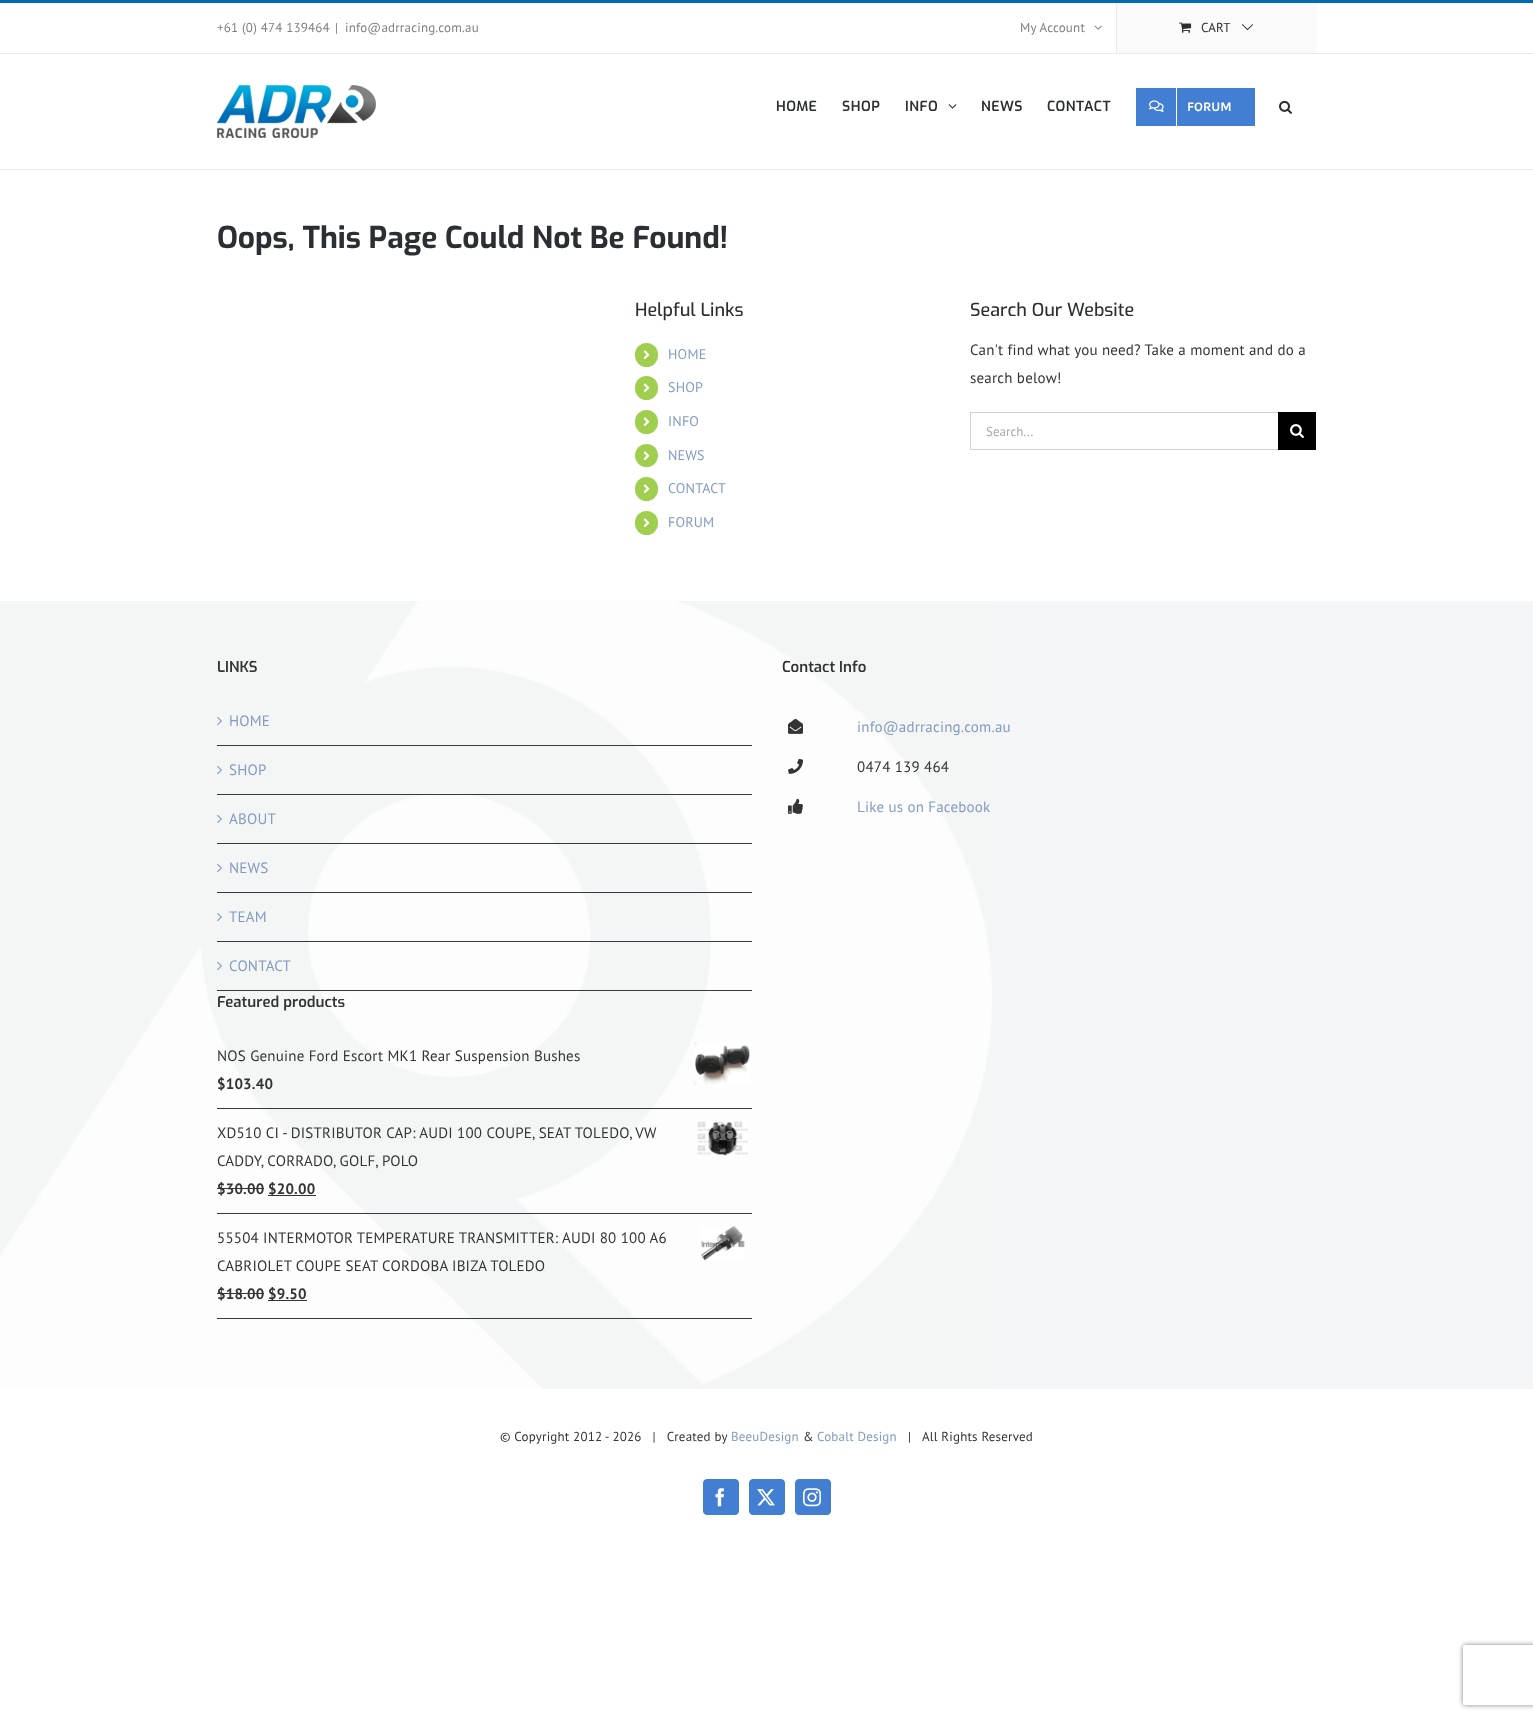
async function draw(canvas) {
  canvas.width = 1533;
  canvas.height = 1719;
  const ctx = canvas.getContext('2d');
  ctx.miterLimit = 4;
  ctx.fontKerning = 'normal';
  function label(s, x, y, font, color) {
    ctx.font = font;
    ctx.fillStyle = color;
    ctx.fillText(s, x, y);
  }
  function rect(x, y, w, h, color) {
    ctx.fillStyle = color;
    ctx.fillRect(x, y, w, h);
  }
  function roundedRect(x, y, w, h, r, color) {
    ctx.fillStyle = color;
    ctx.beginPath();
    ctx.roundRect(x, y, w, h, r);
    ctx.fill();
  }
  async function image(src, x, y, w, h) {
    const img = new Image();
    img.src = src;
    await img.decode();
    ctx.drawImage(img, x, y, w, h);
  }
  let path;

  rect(0, 0, 1533, 1719, '#fff');
  rect(0, 0, 1533, 3, '#056ab3');
  rect(0, 53, 1533, 1, '#eaeaea');
  ctx.letterSpacing = '0.2px';
  label('+61 (0) 474 139464', 217, 32, '13px PT Sans', '#808080');
  label('|', 335, 32, '13px PT Sans', '#808080');
  label('info@adrracing.com.au', 345, 32, '13px PT Sans', '#808080');
  label('My Account', 1020, 32, '13px PT Sans', '#808080');
  await image('assets/img1.png', 1094, 25, 8, 5);
  rect(1116, 3, 1, 50, '#eaeaea');
  rect(1117, 3, 200, 50, '#fafafa');
  await image('assets/img2.png', 1179, 22, 13, 11);
  label('CART', 1201, 32, '13px PT Sans', '#2b2e32');
  await image('assets/img3.png', 1242, 24, 11, 7);
  rect(0, 169, 1533, 1, '#eaeaea');
  await image('assets/img4.png', 217, 85, 159, 53);
  ctx.letterSpacing = '0.5px';
  label('HOME', 776, 111, '600 14px Exo', '#2b2e32');
  label('SHOP', 842, 111, '600 14px Exo', '#2b2e32');
  label('INFO', 905, 111, '600 14px Exo', '#2b2e32');
  await image('assets/img5.png', 948, 104, 9, 5);
  label('NEWS', 981, 111, '600 14px Exo', '#2b2e32');
  label('CONTACT', 1047, 111, '600 14px Exo', '#2b2e32');
  rect(1136, 88, 119, 38, '#427ed1');
  rect(1176, 88, 1, 38, '#fff');
  await image('assets/img6.png', 1149, 100, 15, 12);
  ctx.letterSpacing = '0px';
  label('FORUM', 1187, 111, 'bold 13px Karla', '#fff');
  await image('assets/img7.png', 1279, 100, 13, 14);
  label('Oops, This Page Could Not Be Found!', 217, 248, 'bold 30px Exo', '#2b2e32');
  label('Helpful Links', 635, 316, '500 18px Exo', '#2b2e32');
  roundedRect(635, 343, 23, 24, 11.5, '#a0ce4e');
  await image('assets/img8.png', 643, 350, 7, 10);
  ctx.letterSpacing = '0.2px';
  label('HOME', 668, 359, '14px PT Sans', '#839bbf');
  roundedRect(635, 376, 23, 24, 11.5, '#a0ce4e');
  await image('assets/img8.png', 643, 383, 7, 10);
  label('SHOP', 668, 392, '14px PT Sans', '#839bbf');
  roundedRect(635, 410, 23, 24, 11.5, '#a0ce4e');
  await image('assets/img8.png', 643, 417, 7, 10);
  label('INFO', 668, 426, '14px PT Sans', '#839bbf');
  ctx.fillStyle = '#a0ce4e';
  ctx.beginPath();
  ctx.arc(646.5, 455.5, 11.5, 0, 2 * Math.PI);
  ctx.fill();
  await image('assets/img8.png', 643, 451, 7, 10);
  label('NEWS', 668, 460, '14px PT Sans', '#839bbf');
  roundedRect(635, 477, 23, 24, 11.5, '#a0ce4e');
  await image('assets/img8.png', 643, 484, 7, 10);
  label('CONTACT', 668, 493, '14px PT Sans', '#839bbf');
  roundedRect(635, 511, 23, 24, 11.5, '#a0ce4e');
  await image('assets/img8.png', 643, 518, 7, 10);
  label('FORUM', 668, 527, '14px PT Sans', '#839bbf');
  ctx.letterSpacing = '0px';
  label('Search Our Website', 970, 316, '500 18px Exo', '#2b2e32');
  ctx.letterSpacing = '0.2px';
  label('Can\'t find what you need? Take a moment and do a', 970, 355, '15px PT Sans', '#343435');
  label('search below!', 970, 383, '15px PT Sans', '#343435');
  rect(970, 412, 308, 1, '#d2d2d2');
  rect(970, 449, 308, 1, '#d2d2d2');
  rect(970, 412, 1, 38, '#d2d2d2');
  ctx.letterSpacing = '0px';
  label('Search...', 986, 436, '13px PT Sans', '#aaa9a9');
  rect(1278, 412, 38, 38, '#000');
  await image('assets/img9.png', 1290, 424, 14, 14);
  rect(992, 601, 541, 788, '#f4f6f7');
  await image('assets/img10.png', 0, 601, 992, 788);
  label('LINKS', 217, 672, '600 15px Exo', '#343435');
  rect(217, 745, 535, 1, '#35383c');
  await image('assets/img11.png', 217, 717, 5, 9);
  ctx.letterSpacing = '0.2px';
  label('HOME', 229, 726, '15px PT Sans', '#839bbf');
  rect(217, 794, 535, 1, '#35383c');
  await image('assets/img11.png', 217, 766, 5, 9);
  label('SHOP', 229, 775, '15px PT Sans', '#839bbf');
  rect(217, 843, 535, 1, '#35383c');
  await image('assets/img11.png', 217, 815, 5, 9);
  label('ABOUT', 229, 824, '15px PT Sans', '#839bbf');
  rect(217, 892, 535, 1, '#35383c');
  await image('assets/img11.png', 217, 864, 5, 9);
  label('NEWS', 229, 873, '15px PT Sans', '#839bbf');
  rect(217, 941, 535, 1, '#35383c');
  await image('assets/img11.png', 217, 913, 5, 9);
  label('TEAM', 229, 922, '15px PT Sans', '#839bbf');
  rect(217, 990, 535, 1, '#35383c');
  await image('assets/img11.png', 217, 962, 5, 9);
  label('CONTACT', 229, 971, '15px PT Sans', '#839bbf');
  ctx.letterSpacing = '0px';
  label('Contact Info', 782, 672, '600 15px Exo', '#343435');
  await image('assets/img12.png', 788, 718, 15, 16);
  ctx.letterSpacing = '0.2px';
  label('info@adrracing.com.au', 857, 732, '15px PT Sans', '#839bbf');
  await image('assets/img13.png', 788, 758, 15, 16);
  label('0474 139 464', 857, 772, '15px PT Sans', '#343435');
  await image('assets/img14.png', 788, 798, 15, 16);
  label('Like us on Facebook', 857, 812, '15px PT Sans', '#839bbf');
  ctx.letterSpacing = '0px';
  label('Featured products', 217, 1007, '600 15px Exo', '#343435');
  rect(217, 1108, 535, 1, '#35383c');
  ctx.letterSpacing = '0.2px';
  label('NOS Genuine Ford Escort MK1 Rear Suspension Bushes', 217, 1061, '15px PT Sans', '#343435');
  await image('assets/img15.png', 694, 1042, 56, 43);
  label('$103.40', 217, 1089, 'bold 15px PT Sans', '#343435');
  rect(217, 1213, 535, 1, '#35383c');
  label('XD510 CI - DISTRIBUTOR CAP: AUDI 100 COUPE, SEAT TOLEDO, VW', 217, 1138, '15px PT Sans', '#343435');
  await image('assets/img16.png', 697, 1121, 51, 35);
  label('CADDY, CORRADO, GOLF, POLO', 217, 1166, '15px PT Sans', '#343435');
  label('$30.00', 217, 1194, 'bold 15px PT Sans', '#343435');
  rect(217, 1188, 47, 1, '#343435');
  rect(268, 1195, 48, 1, '#343435');
  label('$20.00', 268, 1194, 'bold 15px PT Sans', '#343435');
  rect(217, 1318, 535, 1, '#35383c');
  label('55504 INTERMOTOR TEMPERATURE TRANSMITTER: AUDI 80 100 A6', 217, 1243, '15px PT Sans', '#343435');
  await image('assets/img17.png', 701, 1226, 44, 35);
  label('CABRIOLET COUPE SEAT CORDOBA IBIZA TOLEDO', 217, 1271, '15px PT Sans', '#343435');
  label('$18.00', 217, 1299, 'bold 15px PT Sans', '#343435');
  rect(217, 1293, 47, 1, '#343435');
  rect(268, 1300, 39, 1, '#343435');
  label('$9.50', 268, 1299, 'bold 15px PT Sans', '#343435');
  label('© Copyright 2012 - 2026   |   Created by', 500, 1441, '13px PT Sans', '#343435');
  label('BeeuDesign', 731, 1441, '13px PT Sans', '#839bbf');
  label('&', 803, 1441, '13px PT Sans', '#343435');
  label('Cobalt Design', 817, 1441, '13px PT Sans', '#839bbf');
  label('|   All Rights Reserved', 908, 1441, '13px PT Sans', '#343435');
  ctx.fillStyle = '#427ed1';
  ctx.beginPath();
  ctx.roundRect(703.5, 1479.5, 35, 35, 3.5);
  ctx.fill();
  ctx.strokeStyle = '#427ed1';
  ctx.stroke();
  await image('assets/img18.png', 715, 1488, 9, 19);
  ctx.beginPath();
  ctx.roundRect(749.5, 1479.5, 35, 35, 3.5);
  ctx.fill();
  ctx.stroke();
  await image('assets/img19.png', 757, 1489, 18, 17);
  ctx.beginPath();
  ctx.roundRect(795.5, 1479.5, 35, 35, 3.5);
  ctx.fill();
  ctx.stroke();
  await image('assets/img20.png', 803, 1488, 18, 19);
  ctx.save();
  path = new Path2D('M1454 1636H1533V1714H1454ZM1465 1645H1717C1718 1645 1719 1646 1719 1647V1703C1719 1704 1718 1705 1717 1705H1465C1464 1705 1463 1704 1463 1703V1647C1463 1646 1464 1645 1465 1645Z');
  ctx.clip(path, 'evenodd');
  ctx.fillStyle = '#808080';
  ctx.filter = 'blur(2.5px)';
  ctx.beginPath();
  ctx.roundRect(1463, 1645, 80, 60, 2);
  ctx.fill();
  ctx.filter = 'none';
  ctx.restore();
}

draw(document.querySelector('canvas'));
